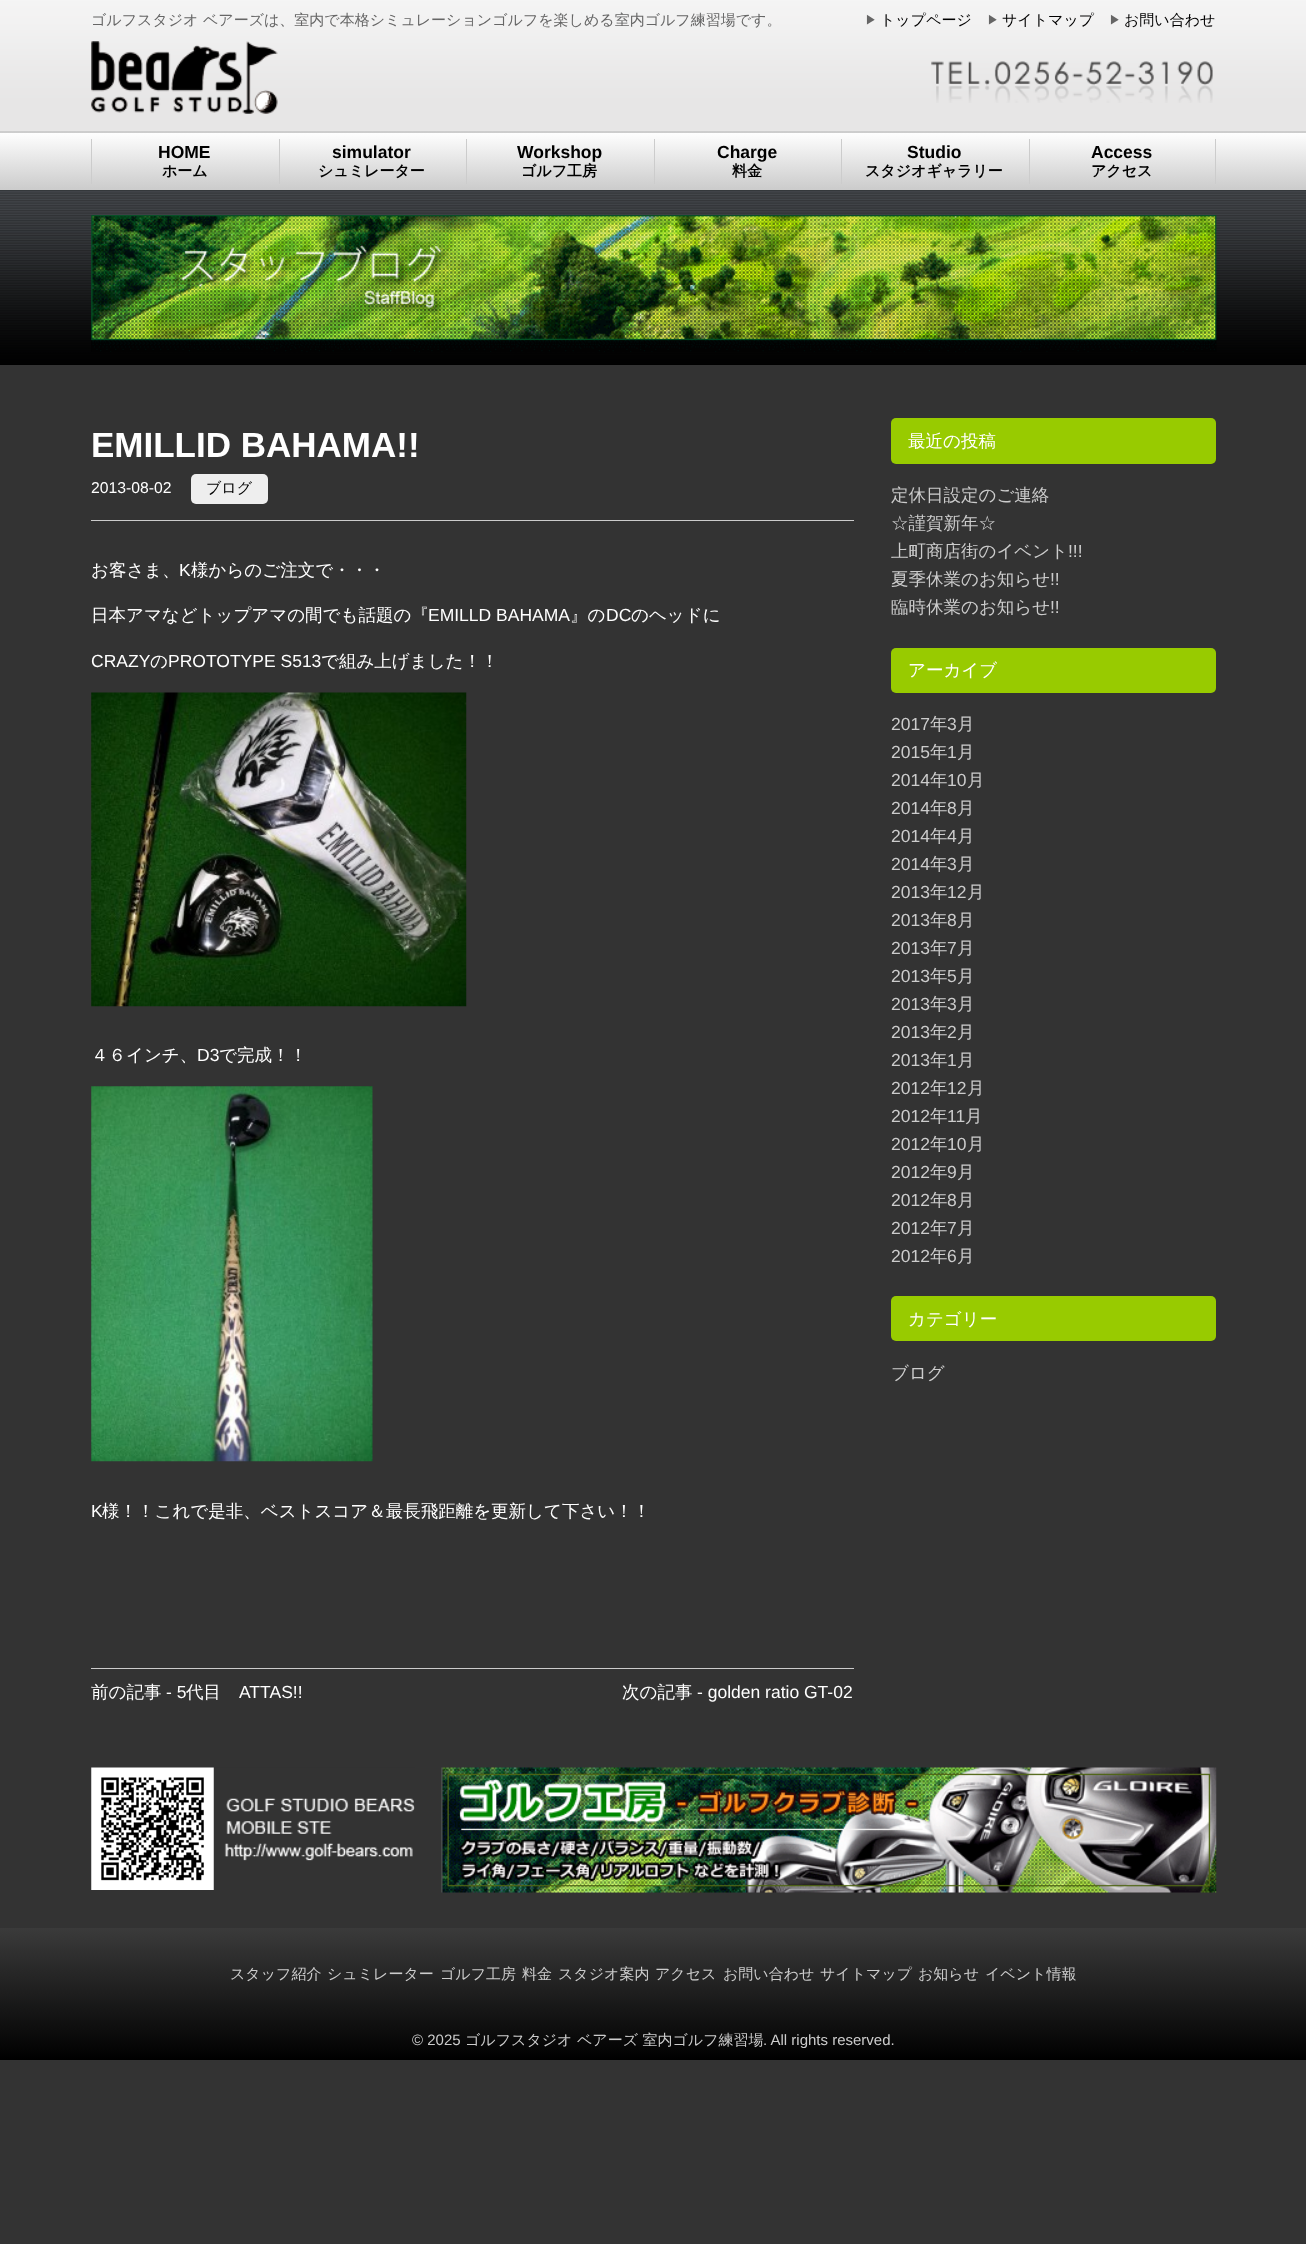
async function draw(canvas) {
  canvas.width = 1306;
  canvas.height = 2244;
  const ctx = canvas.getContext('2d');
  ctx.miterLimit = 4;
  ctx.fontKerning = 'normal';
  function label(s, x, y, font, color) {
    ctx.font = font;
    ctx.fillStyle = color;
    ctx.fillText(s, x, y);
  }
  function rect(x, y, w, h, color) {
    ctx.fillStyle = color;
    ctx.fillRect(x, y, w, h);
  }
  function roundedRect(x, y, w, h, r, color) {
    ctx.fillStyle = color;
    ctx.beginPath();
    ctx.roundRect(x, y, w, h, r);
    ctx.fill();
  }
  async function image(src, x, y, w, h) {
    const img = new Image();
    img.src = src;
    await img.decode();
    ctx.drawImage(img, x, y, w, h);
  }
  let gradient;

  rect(0, 0, 1306, 2244, '#333');
  await image('assets/img1.png', 0, 0, 1306, 131);
  label('ゴルフスタジオ ベアーズは、室内で本格シミュレーションゴルフを楽しめる室内ゴルフ練習場です。', 91, 25, '500 15px WenQuanYi Zen Hei', '#666');
  label('▶', 865, 24, '500 12px WenQuanYi Zen Hei', '#666');
  label('トップページ', 880, 25, '500 15px WenQuanYi Zen Hei', '#000');
  label('▶', 987, 24, '500 12px WenQuanYi Zen Hei', '#666');
  label('サイトマップ', 1002, 25, '500 15px WenQuanYi Zen Hei', '#000');
  label('▶', 1109, 24, '500 12px WenQuanYi Zen Hei', '#666');
  label('お問い合わせ', 1124, 25, '500 15px WenQuanYi Zen Hei', '#000');
  await image('assets/img2.png', 91, 41, 187, 73);
  await image('assets/img3.png', 931, 61, 282, 42);
  gradient = ctx.createLinearGradient(653, 76, 653, 133);
  gradient.addColorStop(0, '#fff');
  gradient.addColorStop(1, '#ccc');
  ctx.fillStyle = gradient;
  ctx.fillRect(0, 131, 1306, 2);
  gradient = ctx.createLinearGradient(653, 132, 653, 189);
  gradient.addColorStop(0, '#fff');
  gradient.addColorStop(1, '#ccc');
  ctx.fillStyle = gradient;
  ctx.fillRect(0, 133, 1306, 56);
  rect(0, 189, 1306, 1, '#ccc');
  rect(91, 139, 1, 45, '#ccc');
  label('HOME', 158, 158, 'bold 17.5px Liberation Sans', '#000');
  label('ホーム', 162, 176, 'bold 15px WenQuanYi Zen Hei', '#000');
  rect(279, 139, 1, 45, '#ccc');
  label('simulator', 332, 158, 'bold 17.5px Liberation Sans', '#000');
  label('シュミレーター', 318, 176, 'bold 15px WenQuanYi Zen Hei', '#000');
  rect(466, 139, 1, 45, '#ccc');
  label('Workshop', 517, 158, 'bold 17.5px Liberation Sans', '#000');
  label('ゴルフ工房', 521, 176, 'bold 15px WenQuanYi Zen Hei', '#000');
  rect(654, 139, 1, 45, '#ccc');
  label('Charge', 717, 158, 'bold 17.5px Liberation Sans', '#000');
  label('料金', 732, 176, 'bold 15px WenQuanYi Zen Hei', '#000');
  rect(841, 139, 1, 45, '#ccc');
  label('Studio', 907, 158, 'bold 17.5px Liberation Sans', '#000');
  label('スタジオギャラリー', 865, 176, 'bold 15px WenQuanYi Zen Hei', '#000');
  rect(1029, 139, 1, 45, '#ccc');
  label('Access', 1091, 158, 'bold 17.5px Liberation Sans', '#000');
  label('アクセス', 1091, 176, 'bold 15px WenQuanYi Zen Hei', '#000');
  rect(1215, 139, 1, 45, '#ccc');
  await image('assets/img4.png', 0, 190, 1306, 175);
  await image('assets/img5.png', 91, 215, 1126, 137);
  rect(91, 520, 763, 1, '#ccc');
  label('EMILLID BAHAMA!!', 91, 457, 'bold 35px Liberation Sans', '#fff');
  label('2013-08-02', 91, 493, '15.75px Liberation Sans', '#fff');
  roundedRect(191, 474, 77, 30, 5, '#eee');
  label('ブログ', 206, 493, '500 15px WenQuanYi Zen Hei', '#000');
  label('お客さま、', 91, 576, '500 17.5px WenQuanYi Zen Hei', '#fff');
  label('K', 179, 576, '17.5px Liberation Sans', '#fff');
  label('様からのご注文で・・・', 191, 576, '500 17.5px WenQuanYi Zen Hei', '#fff');
  label('日本アマなどトップアマの間でも話題の『', 91, 621, '500 17.5px WenQuanYi Zen Hei', '#fff');
  label('EMILLD BAHAMA', 428, 621, '17.5px Liberation Sans', '#fff');
  label('』の', 570, 621, '500 17.5px WenQuanYi Zen Hei', '#fff');
  label('DC', 606, 621, '17.5px Liberation Sans', '#fff');
  label('のヘッドに', 631, 621, '500 17.5px WenQuanYi Zen Hei', '#fff');
  label('CRAZY', 91, 667, '17.5px Liberation Sans', '#fff');
  label('の', 150, 667, '500 17.5px WenQuanYi Zen Hei', '#fff');
  label('PROTOTYPE S513', 168, 667, '17.5px Liberation Sans', '#fff');
  label('で組み上げました！！', 321, 667, '500 17.5px WenQuanYi Zen Hei', '#fff');
  await image('assets/img6.png', 91, 692, 376, 315);
  label('４６インチ、', 91, 1061, '500 17.5px WenQuanYi Zen Hei', '#fff');
  label('D3', 197, 1061, '17.5px Liberation Sans', '#fff');
  label('で完成！！', 219, 1061, '500 17.5px WenQuanYi Zen Hei', '#fff');
  await image('assets/img7.png', 91, 1086, 282, 376);
  label('K', 91, 1517, '17.5px Liberation Sans', '#fff');
  label('様！！これで是非、ベストスコア＆最長飛距離を更新して下さい！！', 102, 1517, '500 17.5px WenQuanYi Zen Hei', '#fff');
  rect(91, 1668, 763, 1, '#ccc');
  label('前の記事', 91, 1698, '500 17.5px WenQuanYi Zen Hei', '#fff');
  label('- 5', 166, 1698, '17.5px Liberation Sans', '#fff');
  label('代目', 186, 1698, '500 17.5px WenQuanYi Zen Hei', '#fff');
  label('ATTAS!!', 239, 1698, '17.5px Liberation Sans', '#fff');
  label('次の記事', 622, 1698, '500 17.5px WenQuanYi Zen Hei', '#fff');
  label('- golden ratio GT-02', 697, 1698, '17.5px Liberation Sans', '#fff');
  roundedRect(891, 418, 325, 46, 5, '#98cb00');
  label('最近の投稿', 908, 447, '500 17.5px WenQuanYi Zen Hei', '#fff');
  label('定休日設定のご連絡', 891, 501, '500 17.5px WenQuanYi Zen Hei', '#ccc');
  label('☆謹賀新年☆', 891, 529, '500 17.5px WenQuanYi Zen Hei', '#ccc');
  label('上町商店街のイベント', 891, 557, '500 17.5px WenQuanYi Zen Hei', '#ccc');
  label('!!!', 1068, 557, '17.5px Liberation Sans', '#ccc');
  label('夏季休業のお知らせ', 891, 585, '500 17.5px WenQuanYi Zen Hei', '#ccc');
  label('!!', 1050, 585, '17.5px Liberation Sans', '#ccc');
  label('臨時休業のお知らせ', 891, 613, '500 17.5px WenQuanYi Zen Hei', '#ccc');
  label('!!', 1050, 613, '17.5px Liberation Sans', '#ccc');
  roundedRect(891, 648, 325, 45, 5, '#98cb00');
  label('アーカイブ', 908, 676, '500 17.5px WenQuanYi Zen Hei', '#fff');
  label('2017', 891, 730, '17.5px Liberation Sans', '#ccc');
  label('年', 930, 730, '500 17.5px WenQuanYi Zen Hei', '#ccc');
  label('3', 947, 730, '17.5px Liberation Sans', '#ccc');
  label('月', 957, 730, '500 17.5px WenQuanYi Zen Hei', '#ccc');
  label('2015', 891, 758, '17.5px Liberation Sans', '#ccc');
  label('年', 930, 758, '500 17.5px WenQuanYi Zen Hei', '#ccc');
  label('1', 947, 758, '17.5px Liberation Sans', '#ccc');
  label('月', 957, 758, '500 17.5px WenQuanYi Zen Hei', '#ccc');
  label('2014', 891, 786, '17.5px Liberation Sans', '#ccc');
  label('年', 930, 786, '500 17.5px WenQuanYi Zen Hei', '#ccc');
  label('10', 947, 786, '17.5px Liberation Sans', '#ccc');
  label('月', 967, 786, '500 17.5px WenQuanYi Zen Hei', '#ccc');
  label('2014', 891, 814, '17.5px Liberation Sans', '#ccc');
  label('年', 930, 814, '500 17.5px WenQuanYi Zen Hei', '#ccc');
  label('8', 947, 814, '17.5px Liberation Sans', '#ccc');
  label('月', 957, 814, '500 17.5px WenQuanYi Zen Hei', '#ccc');
  label('2014', 891, 842, '17.5px Liberation Sans', '#ccc');
  label('年', 930, 842, '500 17.5px WenQuanYi Zen Hei', '#ccc');
  label('4', 947, 842, '17.5px Liberation Sans', '#ccc');
  label('月', 957, 842, '500 17.5px WenQuanYi Zen Hei', '#ccc');
  label('2014', 891, 870, '17.5px Liberation Sans', '#ccc');
  label('年', 930, 870, '500 17.5px WenQuanYi Zen Hei', '#ccc');
  label('3', 947, 870, '17.5px Liberation Sans', '#ccc');
  label('月', 957, 870, '500 17.5px WenQuanYi Zen Hei', '#ccc');
  label('2013', 891, 898, '17.5px Liberation Sans', '#ccc');
  label('年', 930, 898, '500 17.5px WenQuanYi Zen Hei', '#ccc');
  label('12', 947, 898, '17.5px Liberation Sans', '#ccc');
  label('月', 967, 898, '500 17.5px WenQuanYi Zen Hei', '#ccc');
  label('2013', 891, 926, '17.5px Liberation Sans', '#ccc');
  label('年', 930, 926, '500 17.5px WenQuanYi Zen Hei', '#ccc');
  label('8', 947, 926, '17.5px Liberation Sans', '#ccc');
  label('月', 957, 926, '500 17.5px WenQuanYi Zen Hei', '#ccc');
  label('2013', 891, 954, '17.5px Liberation Sans', '#ccc');
  label('年', 930, 954, '500 17.5px WenQuanYi Zen Hei', '#ccc');
  label('7', 947, 954, '17.5px Liberation Sans', '#ccc');
  label('月', 957, 954, '500 17.5px WenQuanYi Zen Hei', '#ccc');
  label('2013', 891, 982, '17.5px Liberation Sans', '#ccc');
  label('年', 930, 982, '500 17.5px WenQuanYi Zen Hei', '#ccc');
  label('5', 947, 982, '17.5px Liberation Sans', '#ccc');
  label('月', 957, 982, '500 17.5px WenQuanYi Zen Hei', '#ccc');
  label('2013', 891, 1010, '17.5px Liberation Sans', '#ccc');
  label('年', 930, 1010, '500 17.5px WenQuanYi Zen Hei', '#ccc');
  label('3', 947, 1010, '17.5px Liberation Sans', '#ccc');
  label('月', 957, 1010, '500 17.5px WenQuanYi Zen Hei', '#ccc');
  label('2013', 891, 1038, '17.5px Liberation Sans', '#ccc');
  label('年', 930, 1038, '500 17.5px WenQuanYi Zen Hei', '#ccc');
  label('2', 947, 1038, '17.5px Liberation Sans', '#ccc');
  label('月', 957, 1038, '500 17.5px WenQuanYi Zen Hei', '#ccc');
  label('2013', 891, 1066, '17.5px Liberation Sans', '#ccc');
  label('年', 930, 1066, '500 17.5px WenQuanYi Zen Hei', '#ccc');
  label('1', 947, 1066, '17.5px Liberation Sans', '#ccc');
  label('月', 957, 1066, '500 17.5px WenQuanYi Zen Hei', '#ccc');
  label('2012', 891, 1094, '17.5px Liberation Sans', '#ccc');
  label('年', 930, 1094, '500 17.5px WenQuanYi Zen Hei', '#ccc');
  label('12', 947, 1094, '17.5px Liberation Sans', '#ccc');
  label('月', 967, 1094, '500 17.5px WenQuanYi Zen Hei', '#ccc');
  label('2012', 891, 1122, '17.5px Liberation Sans', '#ccc');
  label('年', 930, 1122, '500 17.5px WenQuanYi Zen Hei', '#ccc');
  label('11', 947, 1122, '17.5px Liberation Sans', '#ccc');
  label('月', 965, 1122, '500 17.5px WenQuanYi Zen Hei', '#ccc');
  label('2012', 891, 1150, '17.5px Liberation Sans', '#ccc');
  label('年', 930, 1150, '500 17.5px WenQuanYi Zen Hei', '#ccc');
  label('10', 947, 1150, '17.5px Liberation Sans', '#ccc');
  label('月', 967, 1150, '500 17.5px WenQuanYi Zen Hei', '#ccc');
  label('2012', 891, 1178, '17.5px Liberation Sans', '#ccc');
  label('年', 930, 1178, '500 17.5px WenQuanYi Zen Hei', '#ccc');
  label('9', 947, 1178, '17.5px Liberation Sans', '#ccc');
  label('月', 957, 1178, '500 17.5px WenQuanYi Zen Hei', '#ccc');
  label('2012', 891, 1206, '17.5px Liberation Sans', '#ccc');
  label('年', 930, 1206, '500 17.5px WenQuanYi Zen Hei', '#ccc');
  label('8', 947, 1206, '17.5px Liberation Sans', '#ccc');
  label('月', 957, 1206, '500 17.5px WenQuanYi Zen Hei', '#ccc');
  label('2012', 891, 1234, '17.5px Liberation Sans', '#ccc');
  label('年', 930, 1234, '500 17.5px WenQuanYi Zen Hei', '#ccc');
  label('7', 947, 1234, '17.5px Liberation Sans', '#ccc');
  label('月', 957, 1234, '500 17.5px WenQuanYi Zen Hei', '#ccc');
  label('2012', 891, 1262, '17.5px Liberation Sans', '#ccc');
  label('年', 930, 1262, '500 17.5px WenQuanYi Zen Hei', '#ccc');
  label('6', 947, 1262, '17.5px Liberation Sans', '#ccc');
  label('月', 957, 1262, '500 17.5px WenQuanYi Zen Hei', '#ccc');
  roundedRect(891, 1296, 325, 45, 5, '#98cb00');
  label('カテゴリー', 908, 1325, '500 17.5px WenQuanYi Zen Hei', '#fff');
  label('ブログ', 891, 1379, '500 17.5px WenQuanYi Zen Hei', '#ccc');
  gradient = ctx.createLinearGradient(653, 1768, 653, 2060);
  gradient.addColorStop(0, '#828282');
  gradient.addColorStop(1, '#000');
  ctx.fillStyle = gradient;
  ctx.fillRect(0, 1928, 1306, 132);
  await image('assets/img8.png', 91, 1767, 324, 123);
  await image('assets/img9.png', 441, 1767, 776, 126);
  label('スタッフ紹介', 230, 1979, '500 15px WenQuanYi Zen Hei', '#ccc');
  label('シュミレーター', 327, 1979, '500 15px WenQuanYi Zen Hei', '#ccc');
  label('ゴルフ工房', 440, 1979, '500 15px WenQuanYi Zen Hei', '#ccc');
  label('料金', 522, 1979, '500 15px WenQuanYi Zen Hei', '#ccc');
  label('スタジオ案内', 558, 1979, '500 15px WenQuanYi Zen Hei', '#ccc');
  label('アクセス', 655, 1979, '500 15px WenQuanYi Zen Hei', '#ccc');
  label('お問い合わせ', 723, 1979, '500 15px WenQuanYi Zen Hei', '#ccc');
  label('サイトマップ', 820, 1979, '500 15px WenQuanYi Zen Hei', '#ccc');
  label('お知らせ', 918, 1979, '500 15px WenQuanYi Zen Hei', '#ccc');
  label('イベント情報', 985, 1979, '500 15px WenQuanYi Zen Hei', '#ccc');
  label('© 2025', 412, 2045, '15px Liberation Sans', '#ccc');
  label('ゴルフスタジオ ベアーズ 室内ゴルフ練習場', 465, 2045, '500 15px WenQuanYi Zen Hei', '#ccc');
  label('. All rights reserved.', 763, 2045, '15px Liberation Sans', '#ccc');
}

draw(document.querySelector('canvas'));
